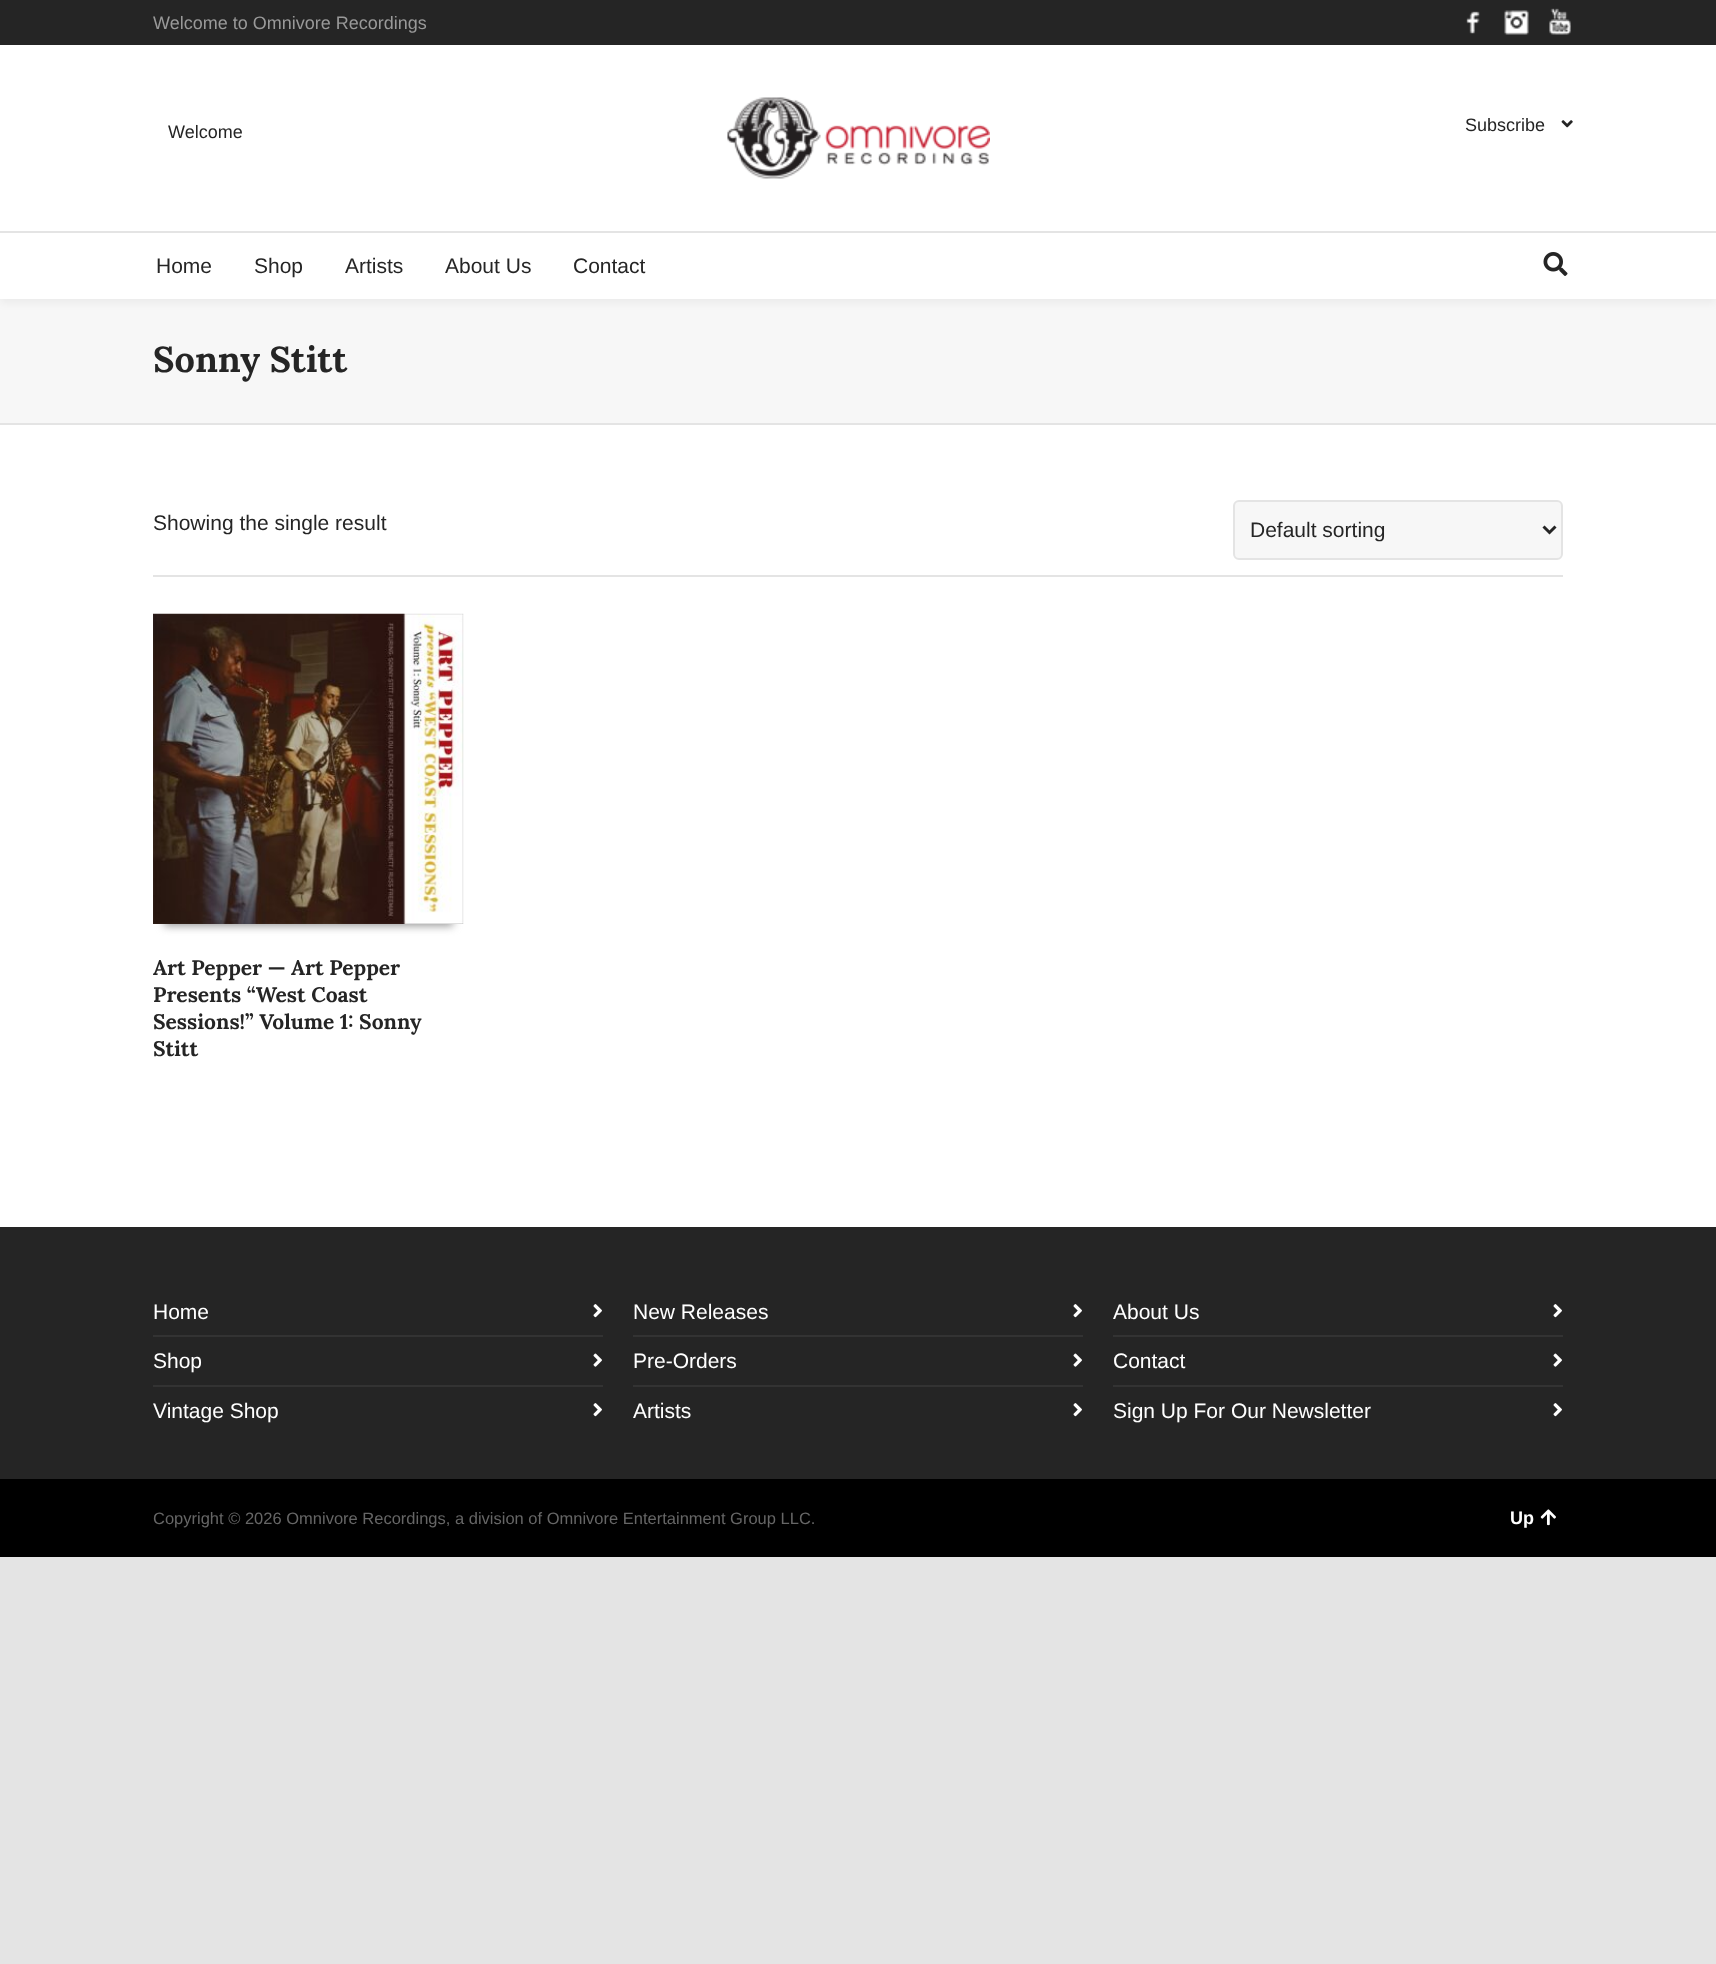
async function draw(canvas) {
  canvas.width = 1716;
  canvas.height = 1964;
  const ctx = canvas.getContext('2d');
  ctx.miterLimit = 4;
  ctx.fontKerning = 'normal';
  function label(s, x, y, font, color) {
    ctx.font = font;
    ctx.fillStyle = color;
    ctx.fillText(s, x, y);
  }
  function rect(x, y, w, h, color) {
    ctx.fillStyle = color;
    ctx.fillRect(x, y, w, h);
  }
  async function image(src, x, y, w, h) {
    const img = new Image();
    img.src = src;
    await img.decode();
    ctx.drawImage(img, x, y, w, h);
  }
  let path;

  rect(0, 0, 1716, 1964, '#e4e4e4');
  rect(0, 299, 1716, 124, '#f7f7f7');
  ctx.fillStyle = '#0000000d';
  ctx.filter = 'blur(4px)';
  ctx.beginPath();
  ctx.rect(0, 50, 1716, 253);
  ctx.fill();
  ctx.filter = 'none';
  rect(0, 0, 1716, 45, '#252525');
  label('Welcome to Omnivore Recordings', 153, 29, '18px Liberation Sans', '#999');
  await image('assets/img1.png', 1466, 11, 14, 23);
  await image('assets/img2.png', 1504, 10, 25, 25);
  await image('assets/img3.png', 1549, 8, 22, 27);
  rect(0, 45, 1716, 254, '#fff');
  label('Welcome', 168, 138, '18px Liberation Sans', '#252525');
  await image('assets/img4.png', 727, 97, 263, 82);
  label('Subscribe', 1465, 131, '18px Liberation Sans', '#252525');
  await image('assets/img5.png', 1561, 120, 12, 8);
  rect(0, 231, 1716, 2, '#e4e4e4');
  label('Home', 156, 273, '21px Liberation Sans', '#252525');
  label('Shop', 254, 273, '21px Liberation Sans', '#252525');
  label('Artists', 345, 273, '21px Liberation Sans', '#252525');
  label('About Us', 445, 273, '21px Liberation Sans', '#252525');
  label('Contact', 573, 273, '21px Liberation Sans', '#252525');
  await image('assets/img6.png', 1543, 252, 25, 24);
  rect(0, 425, 1716, 802, '#fff');
  label('Sonny Stitt', 153, 372, 'bold 36px Lora', '#252525');
  label('Showing the single result', 153, 530, '21px Liberation Sans', '#252525');
  ctx.fillStyle = '#f7f7f7';
  ctx.beginPath();
  ctx.roundRect(1234, 501, 328, 58, 5);
  ctx.fill();
  ctx.strokeStyle = '#e4e4e4';
  ctx.lineWidth = 2;
  ctx.stroke();
  path = new Path2D('M1543.5 526.5L1549.5 532.5L1555.5 526.5');
  ctx.strokeStyle = '#252525';
  ctx.lineWidth = 3;
  ctx.stroke(path);
  label('Default sorting', 1250, 537, '21px Liberation Sans', '#252525');
  rect(153, 575, 1410, 2, '#e4e4e4');
  ctx.fillStyle = '#999';
  ctx.filter = 'blur(4.5px)';
  ctx.beginPath();
  ctx.rect(164, 636, 289, 290);
  ctx.fill();
  ctx.filter = 'none';
  await image('assets/img7.png', 153, 613, 311, 311);
  label('Art Pepper — Art Pepper', 153, 975, 'bold 21px Lora', '#252525');
  label('Presents “West Coast', 153, 1002, 'bold 21px Lora', '#252525');
  label('Sessions!” Volume 1: Sonny', 153, 1029, 'bold 21px Lora', '#252525');
  label('Stitt', 153, 1056, 'bold 21px Lora', '#252525');
  rect(0, 1227, 1716, 252, '#252525');
  label('Home', 153, 1319, '21px Liberation Sans', '#fff');
  await image('assets/img8.png', 593, 1304, 9, 14);
  rect(153, 1335, 450, 2, '#333');
  label('Shop', 153, 1368, '21px Liberation Sans', '#fff');
  await image('assets/img9.png', 593, 1353, 9, 14);
  rect(153, 1385, 450, 2, '#333');
  label('Vintage Shop', 153, 1418, '21px Liberation Sans', '#fff');
  await image('assets/img8.png', 593, 1403, 9, 14);
  label('New Releases', 633, 1319, '21px Liberation Sans', '#fff');
  await image('assets/img8.png', 1073, 1304, 9, 14);
  rect(633, 1335, 450, 2, '#333');
  label('Pre-Orders', 633, 1368, '21px Liberation Sans', '#fff');
  await image('assets/img9.png', 1073, 1353, 9, 14);
  rect(633, 1385, 450, 2, '#333');
  label('Artists', 633, 1418, '21px Liberation Sans', '#fff');
  await image('assets/img8.png', 1073, 1403, 9, 14);
  label('About Us', 1113, 1319, '21px Liberation Sans', '#fff');
  await image('assets/img8.png', 1553, 1304, 9, 14);
  rect(1113, 1335, 450, 2, '#333');
  label('Contact', 1113, 1368, '21px Liberation Sans', '#fff');
  await image('assets/img9.png', 1553, 1353, 9, 14);
  rect(1113, 1385, 450, 2, '#333');
  label('Sign Up For Our Newsletter', 1113, 1418, '21px Liberation Sans', '#fff');
  await image('assets/img8.png', 1553, 1403, 9, 14);
  rect(0, 1479, 1716, 78, '#000');
  label('Copyright © 2026 Omnivore Recordings, a division of Omnivore Entertainment Group LLC.', 153, 1524, '16.5px Liberation Sans', '#666');
  label('Up', 1510, 1524, 'bold 18px Liberation Sans', '#fff');
  await image('assets/img10.png', 1540, 1509, 16, 17);
}

draw(document.querySelector('canvas'));
